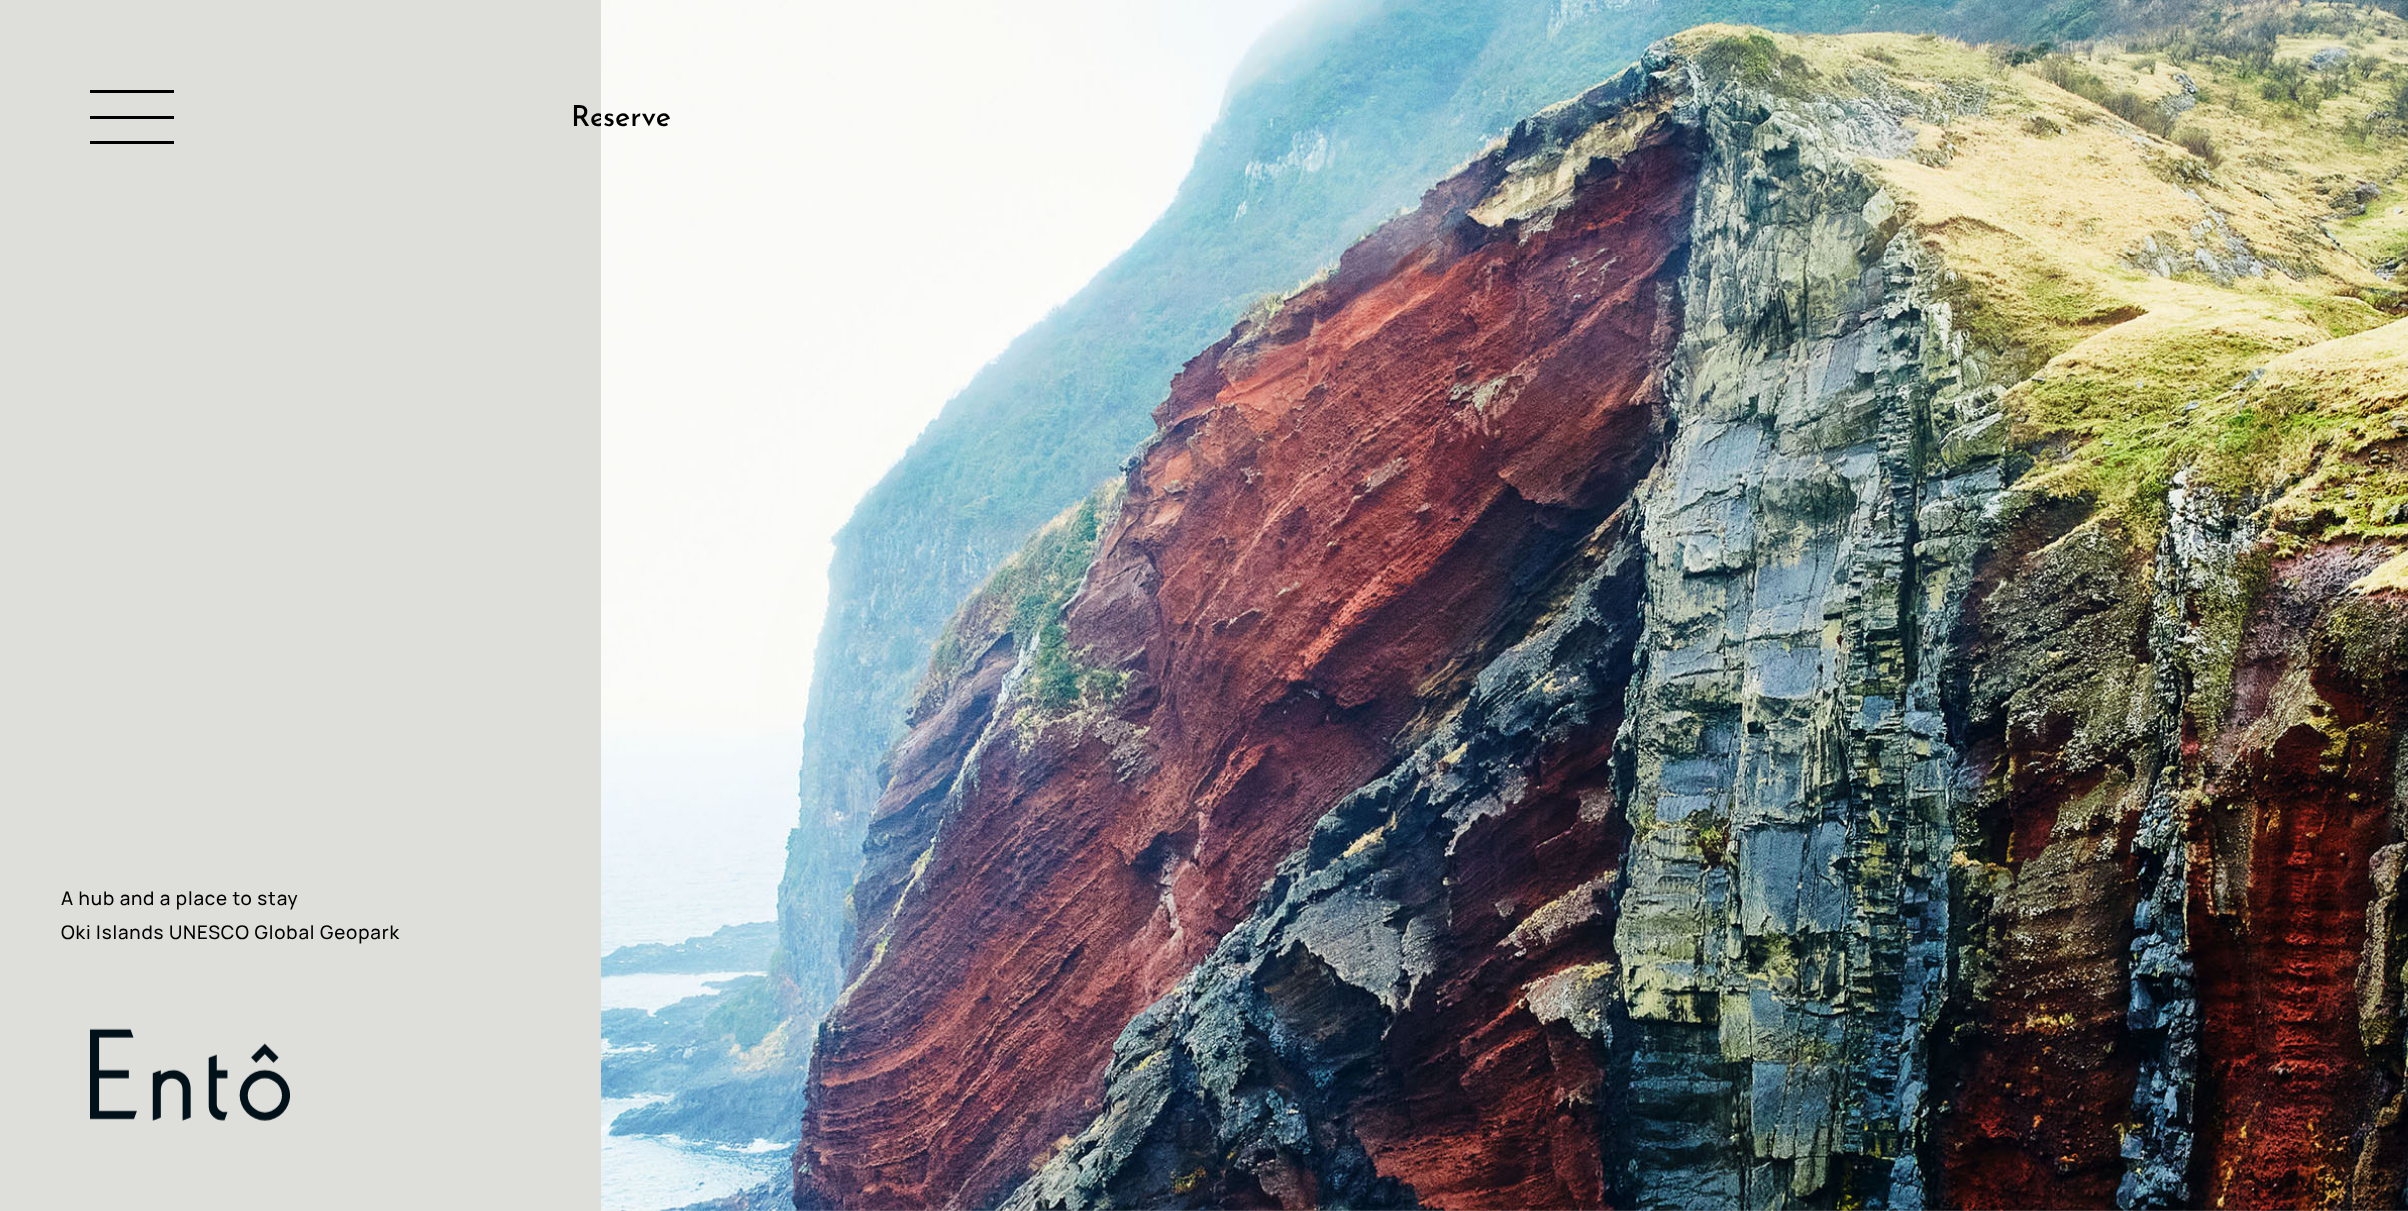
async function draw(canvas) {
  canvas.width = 2408;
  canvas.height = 1211;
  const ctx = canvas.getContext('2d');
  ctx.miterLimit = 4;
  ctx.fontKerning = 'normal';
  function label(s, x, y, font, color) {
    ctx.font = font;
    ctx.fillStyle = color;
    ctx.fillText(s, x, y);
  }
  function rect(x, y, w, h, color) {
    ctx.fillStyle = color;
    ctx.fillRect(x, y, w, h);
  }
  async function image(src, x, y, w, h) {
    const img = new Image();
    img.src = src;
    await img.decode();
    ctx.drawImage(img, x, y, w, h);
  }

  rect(0, 0, 2408, 1211, '#dededa');
  rect(90, 90, 84, 3, '#000');
  rect(90, 116, 84, 3, '#000');
  rect(90, 141, 84, 3, '#000');
  label('Re', 571, 126, '500 29px Josefin Sans', '#000');
  await image('assets/img1.png', 90, 1028, 200, 93);
  await image('assets/img2.png', 601, 0, 1807, 1211);
  label('serve', 603, 126, '500 29px Josefin Sans', '#000');
  ctx.letterSpacing = '0.85px';
  label('A hub and a place to stay', 61, 905, '500 18.75px Manrope', '#000');
  label('Oki Islands UNESCO Global Geopark', 61, 939, '500 18.75px Manrope', '#000');
}

draw(document.querySelector('canvas'));
